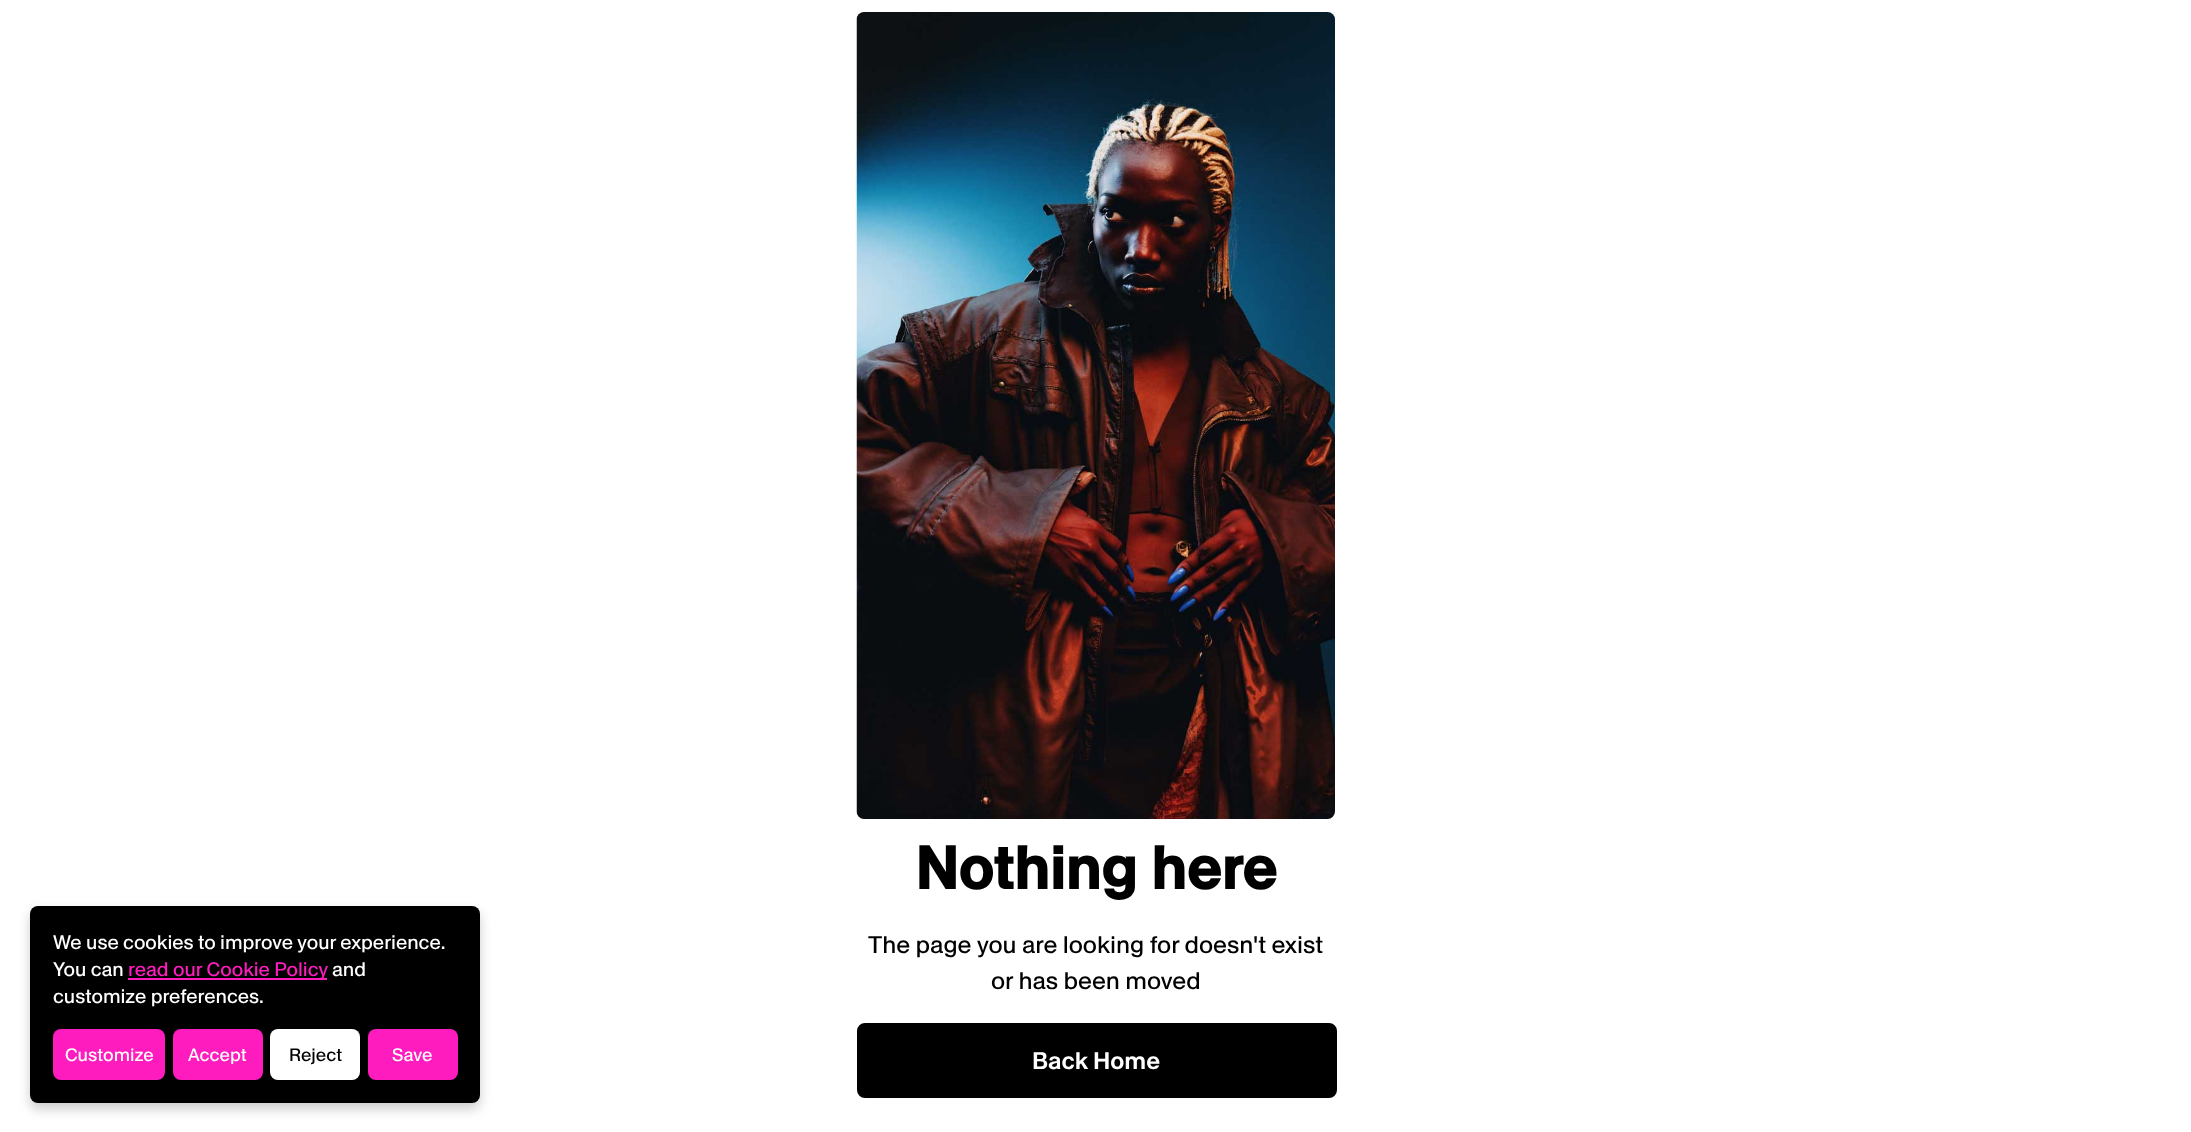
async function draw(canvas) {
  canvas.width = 2191;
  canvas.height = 1132;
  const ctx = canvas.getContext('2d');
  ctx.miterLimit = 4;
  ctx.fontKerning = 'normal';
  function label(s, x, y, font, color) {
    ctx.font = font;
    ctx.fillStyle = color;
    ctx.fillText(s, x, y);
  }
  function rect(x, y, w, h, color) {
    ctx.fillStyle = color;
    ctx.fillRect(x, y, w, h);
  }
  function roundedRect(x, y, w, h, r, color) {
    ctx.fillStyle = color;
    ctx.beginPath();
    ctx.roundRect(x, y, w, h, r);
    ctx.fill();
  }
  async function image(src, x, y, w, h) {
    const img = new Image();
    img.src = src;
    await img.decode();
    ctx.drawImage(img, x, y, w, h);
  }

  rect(0, 0, 2191, 1132, '#fff');
  ctx.fillStyle = '#00000033';
  ctx.filter = 'blur(6px)';
  ctx.beginPath();
  ctx.roundRect(30, 912, 450, 197, 8);
  ctx.fill();
  ctx.filter = 'none';
  roundedRect(30, 906, 450, 197, 8, '#000');
  label('We use cookies to improve your experience.', 53, 949, '19.5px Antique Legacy', '#fff');
  label('You can', 53, 976, '19.5px Antique Legacy', '#fff');
  rect(128, 978, 199, 2, '#ff1cbf');
  label('read our Cookie Policy', 128, 976, '19.5px Antique Legacy', '#ff1cbf');
  label('and', 332, 976, '19.5px Antique Legacy', '#fff');
  label('customize preferences.', 53, 1003, '19.5px Antique Legacy', '#fff');
  roundedRect(53, 1029, 112, 51, 8, '#ff1cbf');
  label('Customize', 65, 1061, '18px Antique Legacy', '#fff');
  roundedRect(173, 1029, 90, 51, 8, '#ff1cbf');
  label('Accept', 188, 1061, '18px Antique Legacy', '#fff');
  roundedRect(270, 1029, 90, 51, 8, '#fff');
  label('Reject', 289, 1061, '18px Antique Legacy', '#000');
  roundedRect(368, 1029, 90, 51, 8, '#ff1cbf');
  label('Save', 392, 1061, '18px Antique Legacy', '#fff');
  await image('assets/img1.png', 856, 12, 479, 807);
  label('Nothing here', 915, 889, 'bold 60px Antique Legacy', '#000');
  label('The page you are looking for doesn\'t exist', 868, 953, '24px Antique Legacy', '#000');
  label('or has been moved', 991, 989, '24px Antique Legacy', '#000');
  ctx.beginPath();
  ctx.roundRect(858, 1024, 478, 73, 7);
  ctx.fill();
  ctx.strokeStyle = '#000';
  ctx.lineWidth = 2;
  ctx.stroke();
  label('Back Home', 1032, 1069, '500 24px Antique Legacy', '#fff');
}

draw(document.querySelector('canvas'));
